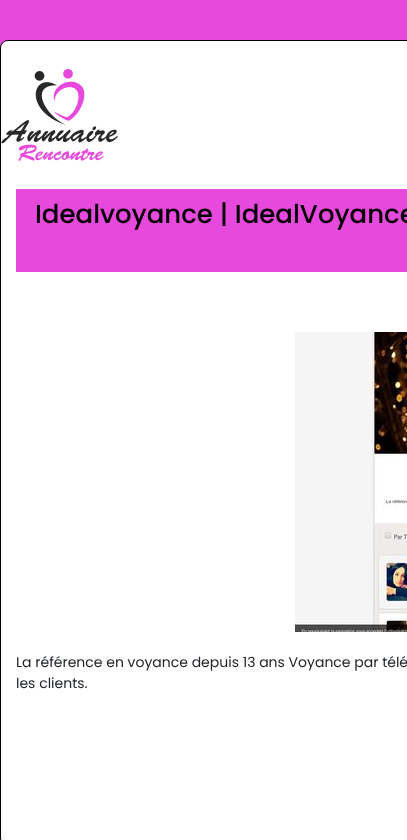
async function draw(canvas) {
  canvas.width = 407;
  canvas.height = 840;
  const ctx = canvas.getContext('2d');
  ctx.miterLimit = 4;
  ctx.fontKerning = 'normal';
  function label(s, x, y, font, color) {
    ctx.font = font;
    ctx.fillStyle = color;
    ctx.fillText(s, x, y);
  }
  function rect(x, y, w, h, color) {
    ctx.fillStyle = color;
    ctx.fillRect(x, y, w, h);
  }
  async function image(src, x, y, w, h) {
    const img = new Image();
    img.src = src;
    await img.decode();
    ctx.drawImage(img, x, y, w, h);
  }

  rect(0, 0, 407, 840, '#e849dd');
  ctx.fillStyle = '#fff';
  ctx.beginPath();
  ctx.roundRect(0.5, 40.5, 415, 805, 7.5);
  ctx.fill();
  ctx.strokeStyle = '#000';
  ctx.stroke();
  await image('assets/img1.png', 1, 69, 117, 92);
  rect(16, 189, 391, 83, '#e849dd');
  label('Idealvoyance | IdealVoyance', 35, 223, '500 26px Poppins', '#000');
  await image('assets/img2.png', 295, 332, 112, 300);
  label('La référence en voyance depuis 13 ans Voyance par télé', 16, 667, '14px Poppins', '#212529');
  label('les clients.', 16, 688, '14px Poppins', '#212529');
}

draw(document.querySelector('canvas'));
